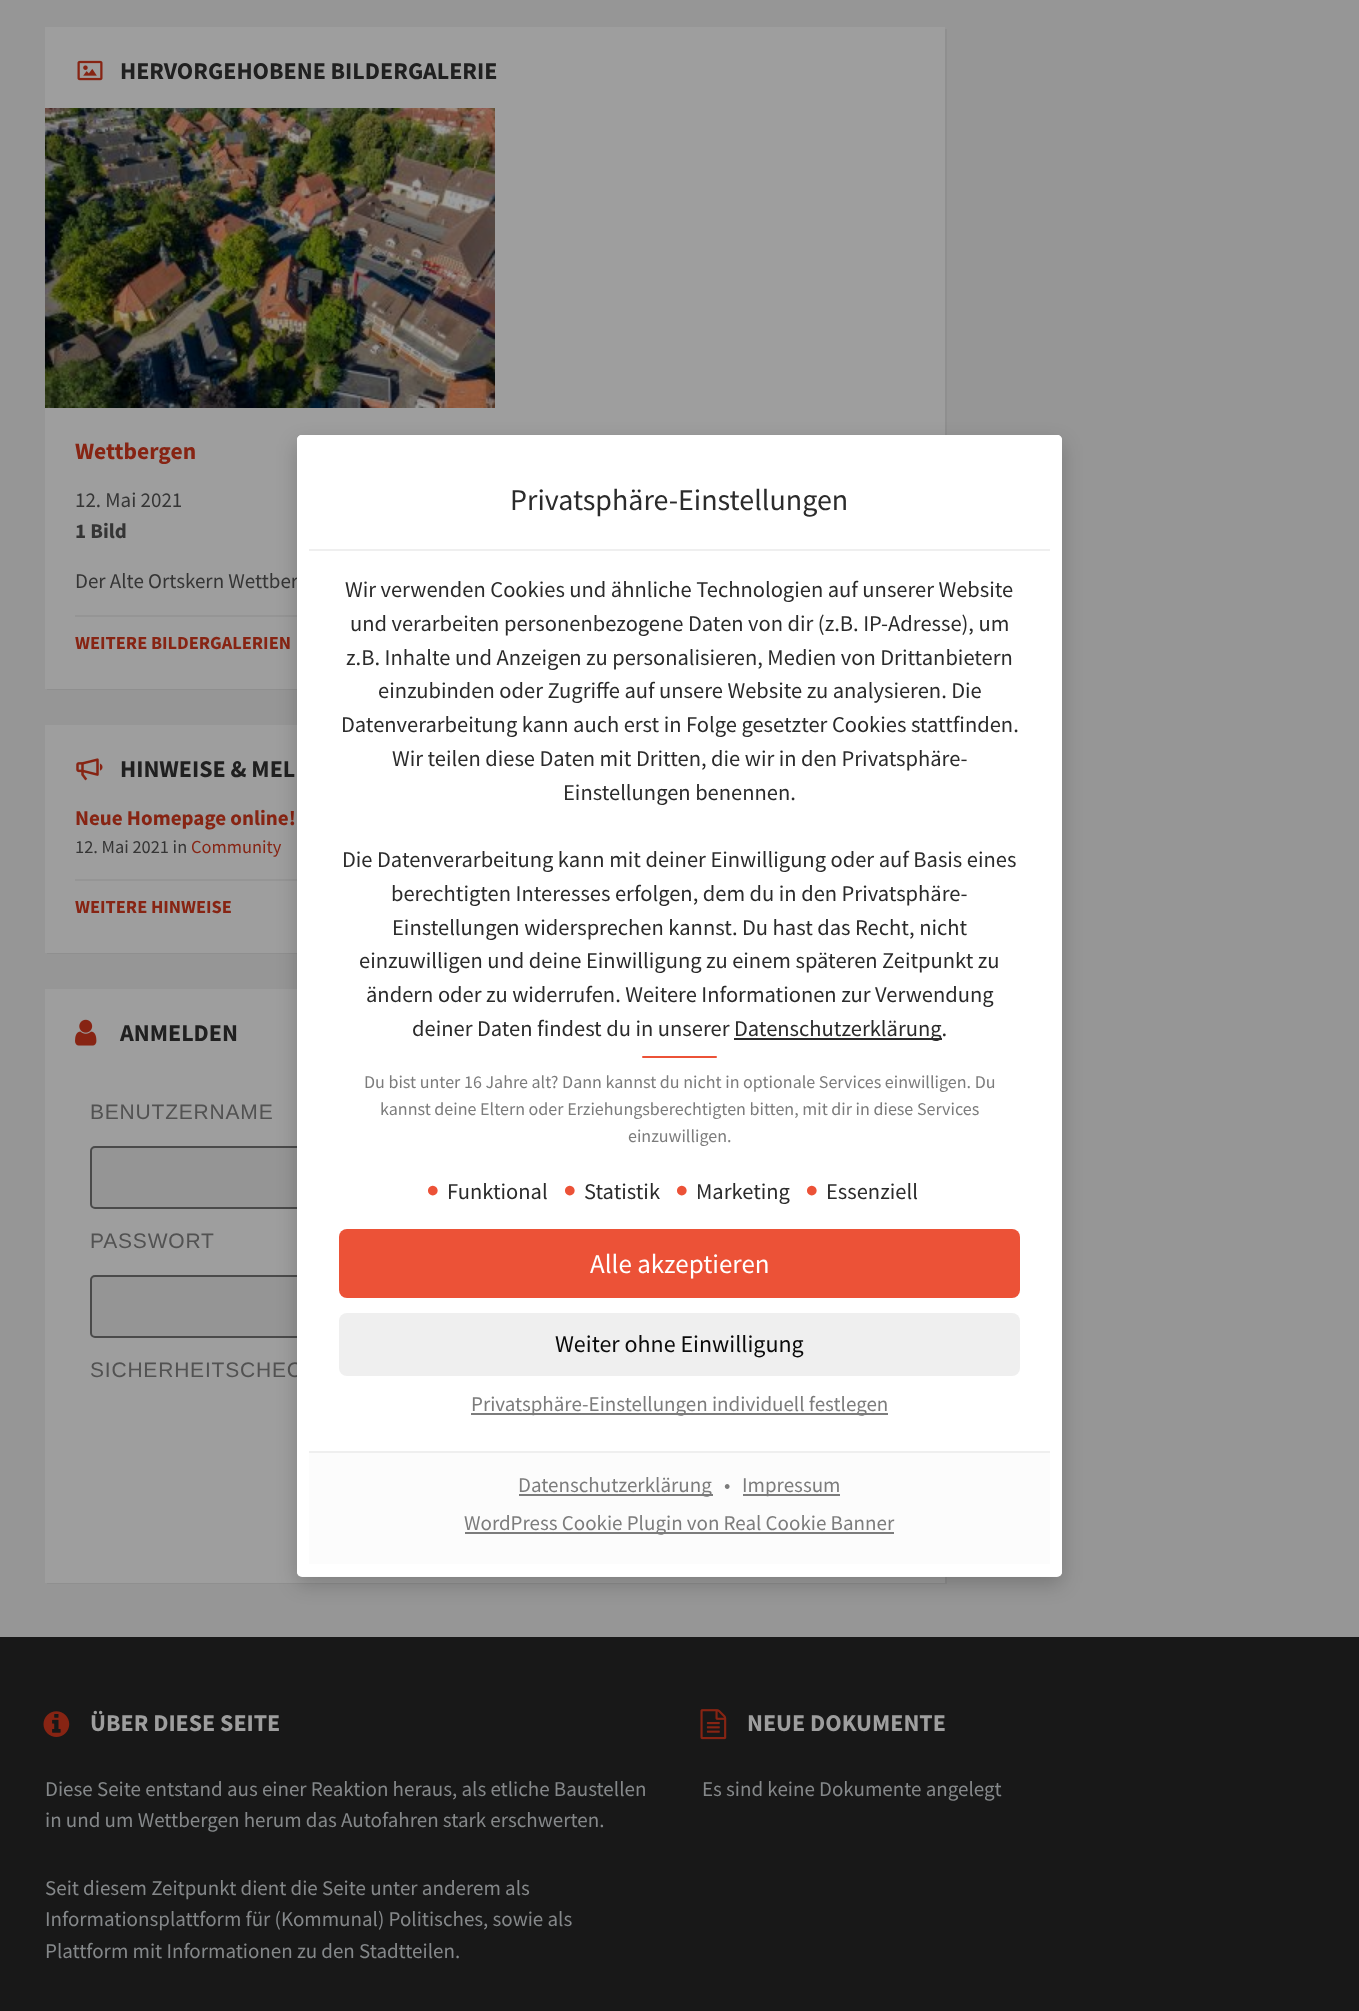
async function draw(canvas) {
  canvas.width = 1359;
  canvas.height = 2011;
  const ctx = canvas.getContext('2d');
  ctx.miterLimit = 4;
  ctx.fontKerning = 'normal';
  function label(s, x, y, font, color) {
    ctx.font = font;
    ctx.fillStyle = color;
    ctx.fillText(s, x, y);
  }
  function rect(x, y, w, h, color) {
    ctx.fillStyle = color;
    ctx.fillRect(x, y, w, h);
  }
  function roundedRect(x, y, w, h, r, color) {
    ctx.fillStyle = color;
    ctx.beginPath();
    ctx.roundRect(x, y, w, h, r);
    ctx.fill();
  }
  async function image(src, x, y, w, h) {
    const img = new Image();
    img.src = src;
    await img.decode();
    ctx.drawImage(img, x, y, w, h);
  }
  let path;

  rect(0, 0, 1359, 2011, '#969696');
  ctx.fillStyle = '#8f8f8f';
  path = new Path2D('M47 688V690H947V29H945V688Z');
  ctx.fill(path);
  rect(45, 27, 900, 662, '#9e9e9e');
  await image('assets/img1.png', 77, 60, 26, 21);
  label('HERVORGEHOBENE BILDERGALERIE', 120, 79, 'bold 24px Source Sans Pro', '#202020');
  await image('assets/img2.png', 45, 108, 450, 300);
  label('Wettbergen', 75, 459, 'bold 23.5px Source Sans Pro', '#872413');
  label('12. Mai 2021', 75, 507, '21px Source Sans Pro', '#353535');
  label('1 Bild', 75, 538, 'bold 21px Source Sans Pro', '#353535');
  label('Der Alte Ortskern Wettber', 75, 588, '21px Source Sans Pro', '#353535');
  rect(75, 615, 222, 2, '#959595');
  label('WEITERE BILDERGALERIEN', 75, 649, 'bold 18.4px Source Sans Pro', '#872413');
  ctx.fillStyle = '#8f8f8f';
  path = new Path2D('M47 952V954H947V726H945V952Z');
  ctx.fill(path);
  rect(45, 725, 252, 228, '#9e9e9e');
  await image('assets/img3.png', 76, 758, 27, 23);
  label('HINWEISE & MEL', 120, 777, 'bold 24px Source Sans Pro', '#202020');
  label('Neue Homepage online!', 75, 825, 'bold 21px Source Sans Pro', '#872413');
  label('12. Mai 2021 in', 75, 853, '18.4px Source Sans Pro', '#353535');
  label('Community', 191, 853, '18.4px Source Sans Pro', '#872413');
  rect(75, 879, 222, 2, '#959595');
  label('WEITERE HINWEISE', 75, 913, 'bold 18.4px Source Sans Pro', '#872413');
  ctx.fillStyle = '#8f8f8f';
  path = new Path2D('M47 1582V1584H947V990H945V1582Z');
  ctx.fill(path);
  rect(45, 989, 900, 594, '#9e9e9e');
  await image('assets/img4.png', 75, 1019, 22, 27);
  label('ANMELDEN', 120, 1041, 'bold 24px Source Sans Pro', '#202020');
  ctx.letterSpacing = '0.8px';
  label('BENUTZERNAME', 90, 1119, '21px Liberation Sans', '#525252');
  roundedRect(90, 1146, 786, 63, 5, '#959595');
  ctx.beginPath();
  ctx.roundRect(91, 1147, 784, 61, 4);
  ctx.strokeStyle = '#00000080';
  ctx.lineWidth = 2;
  ctx.stroke();
  label('PASSWORT', 90, 1248, '21px Liberation Sans', '#525252');
  roundedRect(90, 1275, 786, 63, 5, '#959595');
  ctx.beginPath();
  ctx.roundRect(91, 1276, 784, 61, 4);
  ctx.stroke();
  label('SICHERHEITSCHEC', 90, 1377, '21px Liberation Sans', '#525252');
  rect(0, 1637, 1359, 374, '#181818');
  await image('assets/img5.png', 43, 1711, 27, 26);
  ctx.letterSpacing = '0px';
  label('ÜBER DIESE SEITE', 90, 1731, 'bold 24px Source Sans Pro', '#9e9e9e');
  label('Diese Seite entstand aus einer Reaktion heraus, als etliche Baustellen', 45, 1796, '21px Source Sans Pro', '#85888a');
  label('in und um Wettbergen herum das Autofahren stark erschwerten.', 45, 1827, '21px Source Sans Pro', '#85888a');
  label('Seit diesem Zeitpunkt dient die Seite unter anderem als', 45, 1895, '21px Source Sans Pro', '#85888a');
  label('Informationsplattform für (Kommunal) Politisches, sowie als', 45, 1926, '21px Source Sans Pro', '#85888a');
  label('Plattform mit Informationen zu den Stadtteilen.', 45, 1958, '21px Source Sans Pro', '#85888a');
  await image('assets/img6.png', 700, 1709, 27, 31);
  label('NEUE DOKUMENTE', 747, 1731, 'bold 24px Source Sans Pro', '#9e9e9e');
  label('Es sind keine Dokumente angelegt', 702, 1796, '21px Source Sans Pro', '#85888a');
  ctx.fillStyle = '#00000033';
  ctx.filter = 'blur(10px)';
  ctx.beginPath();
  ctx.roundRect(297, 443, 765, 1141, 5);
  ctx.fill();
  ctx.filter = 'none';
  ctx.fillStyle = '#fff';
  ctx.beginPath();
  ctx.roundRect(297, 435, 765, 116, [5, 5, 0, 0]);
  ctx.fill();
  path = new Path2D('M302 435C299 435 297 437 297 440V550H309V447H1050V550H1062V440C1062 437 1060 435 1057 435Z');
  ctx.fill(path);
  label('Privatsphäre-Einstellungen', 510, 510, '30px Source Sans Pro', '#2b2b2b');
  rect(309, 549, 741, 2, '#efefef');
  rect(297, 551, 765, 900, '#fff');
  label('Wir verwenden Cookies und ähnliche Technologien auf unserer Website', 345, 597, '22.5px Source Sans Pro', '#2b2b2b');
  label('und verarbeiten personenbezogene Daten von dir (z.B. IP-Adresse), um', 350, 631, '22.5px Source Sans Pro', '#2b2b2b');
  label('z.B. Inhalte und Anzeigen zu personalisieren, Medien von Drittanbietern', 346, 665, '22.5px Source Sans Pro', '#2b2b2b');
  label('einzubinden oder Zugriffe auf unsere Website zu analysieren. Die', 378, 698, '22.5px Source Sans Pro', '#2b2b2b');
  label('Datenverarbeitung kann auch erst in Folge gesetzter Cookies stattfinden.', 341, 732, '22.5px Source Sans Pro', '#2b2b2b');
  label('Wir teilen diese Daten mit Dritten, die wir in den Privatsphäre-', 392, 766, '22.5px Source Sans Pro', '#2b2b2b');
  label('Einstellungen benennen.', 563, 800, '22.5px Source Sans Pro', '#2b2b2b');
  label('Die Datenverarbeitung kann mit deiner Einwilligung oder auf Basis eines', 342, 867, '22.5px Source Sans Pro', '#2b2b2b');
  label('berechtigten Interesses erfolgen, dem du in den Privatsphäre-', 391, 901, '22.5px Source Sans Pro', '#2b2b2b');
  label('Einstellungen widersprechen kannst. Du hast das Recht, nicht', 392, 935, '22.5px Source Sans Pro', '#2b2b2b');
  label('einzuwilligen und deine Einwilligung zu einem späteren Zeitpunkt zu', 359, 968, '22.5px Source Sans Pro', '#2b2b2b');
  label('ändern oder zu widerrufen. Weitere Informationen zur Verwendung', 366, 1002, '22.5px Source Sans Pro', '#2b2b2b');
  label('deiner Daten findest du in unserer', 412, 1036, '22.5px Source Sans Pro', '#2b2b2b');
  rect(734, 1038, 208, 2, '#2b2b2b');
  label('Datenschutzerklärung.', 734, 1036, '22.5px Source Sans Pro', '#2b2b2b');
  roundedRect(642, 1056, 75, 2, 1, '#ec5237');
  label('Du bist unter 16 Jahre alt? Dann kannst du nicht in optionale Services einwilligen. Du', 364, 1088, '18px Source Sans Pro', '#7c7c7c');
  label('kannst deine Eltern oder Erziehungsberechtigten bitten, mit dir in diese Services', 380, 1115, '18px Source Sans Pro', '#7c7c7c');
  label('einzuwilligen.', 628, 1142, '18px Source Sans Pro', '#7c7c7c');
  label('●', 426, 1197, 'italic 22.5px Liberation Sans', '#ec5237');
  label('Funktional', 447, 1199, '22.5px Source Sans Pro', '#2b2b2b');
  label('●', 563, 1197, 'italic 22.5px Liberation Sans', '#ec5237');
  label('Statistik', 584, 1199, '22.5px Source Sans Pro', '#2b2b2b');
  label('●', 675, 1197, 'italic 22.5px Liberation Sans', '#ec5237');
  label('Marketing', 696, 1199, '22.5px Source Sans Pro', '#2b2b2b');
  label('●', 805, 1197, 'italic 22.5px Liberation Sans', '#ec5237');
  label('Essenziell', 826, 1199, '22.5px Source Sans Pro', '#2b2b2b');
  roundedRect(339, 1229, 681, 69, 8, '#ec5237');
  label('Alle akzeptieren', 590, 1273, '27px Source Sans Pro', '#fff');
  roundedRect(339, 1313, 681, 63, 8, '#efefef');
  label('Weiter ohne Einwilligung', 555, 1352, '24px Source Sans Pro', '#0a0a0a');
  rect(471, 1413, 417, 2, '#7c7c7c');
  label('Privatsphäre-Einstellungen individuell festlegen', 471, 1411, '21px Source Sans Pro', '#7c7c7c');
  ctx.fillStyle = '#fcfcfc';
  ctx.beginPath();
  ctx.roundRect(297, 1451, 765, 126, [0, 0, 5, 5]);
  ctx.fill();
  ctx.fillStyle = '#fff';
  path = new Path2D('M297 1450H1062V1572C1062 1574 1060 1576 1058 1576H302C299 1576 297 1574 297 1572ZM309 1450H1050V1564H309Z');
  ctx.fill(path, 'evenodd');
  rect(309, 1451, 741, 2, '#efefef');
  rect(519, 1494, 194, 2, '#7c7c7c');
  label('Datenschutzerklärung', 518, 1492, '21px Source Sans Pro', '#7c7c7c');
  label('•', 724, 1492, '21px Source Sans Pro', '#7c7c7c');
  rect(743, 1494, 97, 2, '#7c7c7c');
  label('Impressum', 742, 1492, '21px Source Sans Pro', '#7c7c7c');
  rect(465, 1532, 429, 2, '#7c7c7c');
  label('WordPress Cookie Plugin von Real Cookie Banner', 464, 1530, '21px Source Sans Pro', '#7c7c7c');
}

draw(document.querySelector('canvas'));
